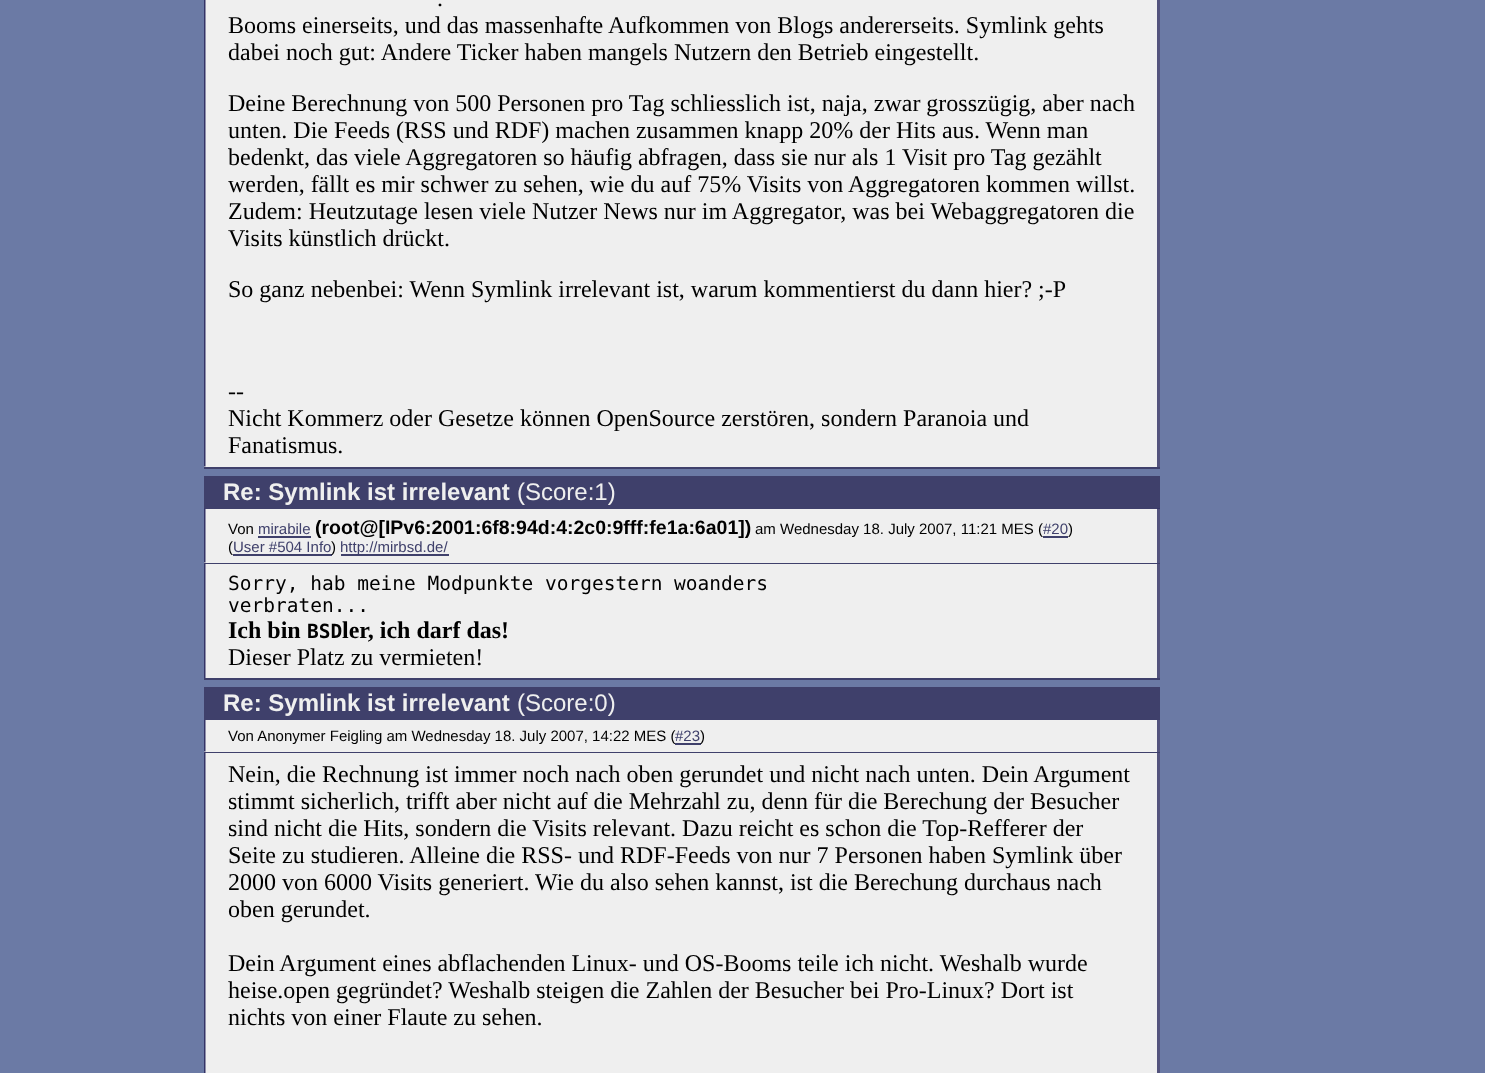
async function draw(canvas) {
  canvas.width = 1485;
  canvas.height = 1073;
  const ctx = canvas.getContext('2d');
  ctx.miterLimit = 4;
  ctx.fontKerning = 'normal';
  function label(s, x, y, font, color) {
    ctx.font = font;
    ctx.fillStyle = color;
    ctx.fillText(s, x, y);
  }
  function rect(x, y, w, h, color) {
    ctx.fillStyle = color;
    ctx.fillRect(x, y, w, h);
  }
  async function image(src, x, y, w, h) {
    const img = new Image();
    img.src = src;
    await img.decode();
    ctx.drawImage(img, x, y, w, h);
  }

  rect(0, 0, 1485, 1073, '#6b7aa5');
  rect(204, 0, 953, 467, '#efefef');
  await image('assets/img1.png', 204, 0, 2, 467);
  rect(1157, 0, 3, 467, '#53537d');
  label('.', 437, 6, '24px Liberation Serif', '#000');
  label('Booms einerseits, und das massenhafte Aufkommen von Blogs andererseits. Symlink gehts', 228, 33, '24px Liberation Serif', '#000');
  label('dabei noch gut: Andere Ticker haben mangels Nutzern den Betrieb eingestellt.', 228, 60, '24px Liberation Serif', '#000');
  label('Deine Berechnung von 500 Personen pro Tag schliesslich ist, naja, zwar grosszügig, aber nach', 228, 111, '24px Liberation Serif', '#000');
  label('unten. Die Feeds (RSS und RDF) machen zusammen knapp 20% der Hits aus. Wenn man', 228, 138, '24px Liberation Serif', '#000');
  label('bedenkt, das viele Aggregatoren so häufig abfragen, dass sie nur als 1 Visit pro Tag gezählt', 228, 165, '24px Liberation Serif', '#000');
  label('werden, fällt es mir schwer zu sehen, wie du auf 75% Visits von Aggregatoren kommen willst.', 228, 192, '24px Liberation Serif', '#000');
  label('Zudem: Heutzutage lesen viele Nutzer News nur im Aggregator, was bei Webaggregatoren die', 228, 219, '24px Liberation Serif', '#000');
  label('Visits künstlich drückt.', 228, 246, '24px Liberation Serif', '#000');
  label('So ganz nebenbei: Wenn Symlink irrelevant ist, warum kommentierst du dann hier? ;-P', 228, 297, '24px Liberation Serif', '#000');
  label('--', 228, 399, '24px Liberation Serif', '#000');
  label('Nicht Kommerz oder Gesetze können OpenSource zerstören, sondern Paranoia und', 228, 426, '24px Liberation Serif', '#000');
  label('Fanatismus.', 228, 453, '24px Liberation Serif', '#000');
  rect(204, 467, 956, 2, '#3f406b');
  rect(204, 476, 956, 33, '#3f406b');
  label('Re: Symlink ist irrelevant', 223, 500, 'bold 24px Liberation Sans', '#efefef');
  label('(Score:1)', 517, 500, '24px Liberation Sans', '#efefef');
  rect(1157, 508, 3, 1, '#353567');
  rect(204, 509, 953, 54, '#efefef');
  await image('assets/img2.png', 204, 508, 2, 55);
  rect(1157, 509, 3, 54, '#53537d');
  label('Von', 228, 534, '15px Liberation Sans', '#000');
  label('mirabile', 258, 534, '15px Liberation Sans', '#3f406b');
  rect(258, 536, 53, 2, '#3f406b');
  label('(root@[IPv6:2001:6f8:94d:4:2c0:9fff:fe1a:6a01])', 315, 534, 'bold 19.5px Liberation Sans', '#000');
  label('am Wednesday 18. July 2007, 11:21 MES (', 755, 534, '15px Liberation Sans', '#000');
  rect(1043, 536, 25, 2, '#3f406b');
  label('#20', 1043, 534, '15px Liberation Sans', '#3f406b');
  label(')', 1068, 534, '15px Liberation Sans', '#000');
  label('(', 228, 552, '15px Liberation Sans', '#000');
  rect(233, 554, 99, 2, '#3f406b');
  label('User #504 Info', 233, 552, '15px Liberation Sans', '#3f406b');
  label(')', 331, 552, '15px Liberation Sans', '#000');
  rect(341, 554, 108, 2, '#3f406b');
  label('http://mirbsd.de/', 340, 552, '15px Liberation Sans', '#3f406b');
  rect(204, 563, 956, 1, '#3f406b');
  rect(205, 564, 952, 114, '#efefef');
  await image('assets/img3.png', 204, 564, 2, 114);
  rect(1157, 564, 3, 114, '#53537d');
  label('Sorry, hab meine Modpunkte vorgestern woanders', 228, 590, '19.5px DejaVu Sans Mono', '#000');
  label('verbraten...', 228, 612, '19.5px DejaVu Sans Mono', '#000');
  label('Ich bin', 228, 638, 'bold 24px Liberation Serif', '#000');
  label('BSD', 307, 638, 'bold 19.5px DejaVu Sans Mono', '#000');
  label('ler, ich darf das!', 342, 638, 'bold 24px Liberation Serif', '#000');
  label('Dieser Platz zu vermieten!', 228, 665, '24px Liberation Serif', '#000');
  rect(204, 678, 956, 2, '#3f406b');
  rect(204, 687, 956, 33, '#3f406b');
  label('Re: Symlink ist irrelevant', 223, 711, 'bold 24px Liberation Sans', '#efefef');
  label('(Score:0)', 517, 711, '24px Liberation Sans', '#efefef');
  rect(204, 720, 953, 32, '#efefef');
  await image('assets/img4.png', 204, 720, 2, 32);
  rect(1157, 720, 3, 32, '#53537d');
  label('Von Anonymer Feigling am Wednesday 18. July 2007, 14:22 MES (', 228, 741, '15px Liberation Sans', '#000');
  rect(675, 743, 26, 2, '#3f406b');
  label('#23', 675, 741, '15px Liberation Sans', '#3f406b');
  label(')', 700, 741, '15px Liberation Sans', '#000');
  rect(204, 752, 956, 1, '#3f406b');
  rect(205, 753, 952, 320, '#efefef');
  await image('assets/img5.png', 204, 753, 2, 320);
  rect(1157, 753, 3, 320, '#53537d');
  label('Nein, die Rechnung ist immer noch nach oben gerundet und nicht nach unten. Dein Argument', 228, 782, '24px Liberation Serif', '#000');
  label('stimmt sicherlich, trifft aber nicht auf die Mehrzahl zu, denn für die Berechung der Besucher', 228, 809, '24px Liberation Serif', '#000');
  label('sind nicht die Hits, sondern die Visits relevant. Dazu reicht es schon die Top-Refferer der', 228, 836, '24px Liberation Serif', '#000');
  label('Seite zu studieren. Alleine die RSS- und RDF-Feeds von nur 7 Personen haben Symlink über', 228, 863, '24px Liberation Serif', '#000');
  label('2000 von 6000 Visits generiert. Wie du also sehen kannst, ist die Berechung durchaus nach', 228, 890, '24px Liberation Serif', '#000');
  label('oben gerundet.', 228, 917, '24px Liberation Serif', '#000');
  label('Dein Argument eines abflachenden Linux- und OS-Booms teile ich nicht. Weshalb wurde', 228, 971, '24px Liberation Serif', '#000');
  label('heise.open gegründet? Weshalb steigen die Zahlen der Besucher bei Pro-Linux? Dort ist', 228, 998, '24px Liberation Serif', '#000');
  label('nichts von einer Flaute zu sehen.', 228, 1025, '24px Liberation Serif', '#000');
}

draw(document.querySelector('canvas'));
